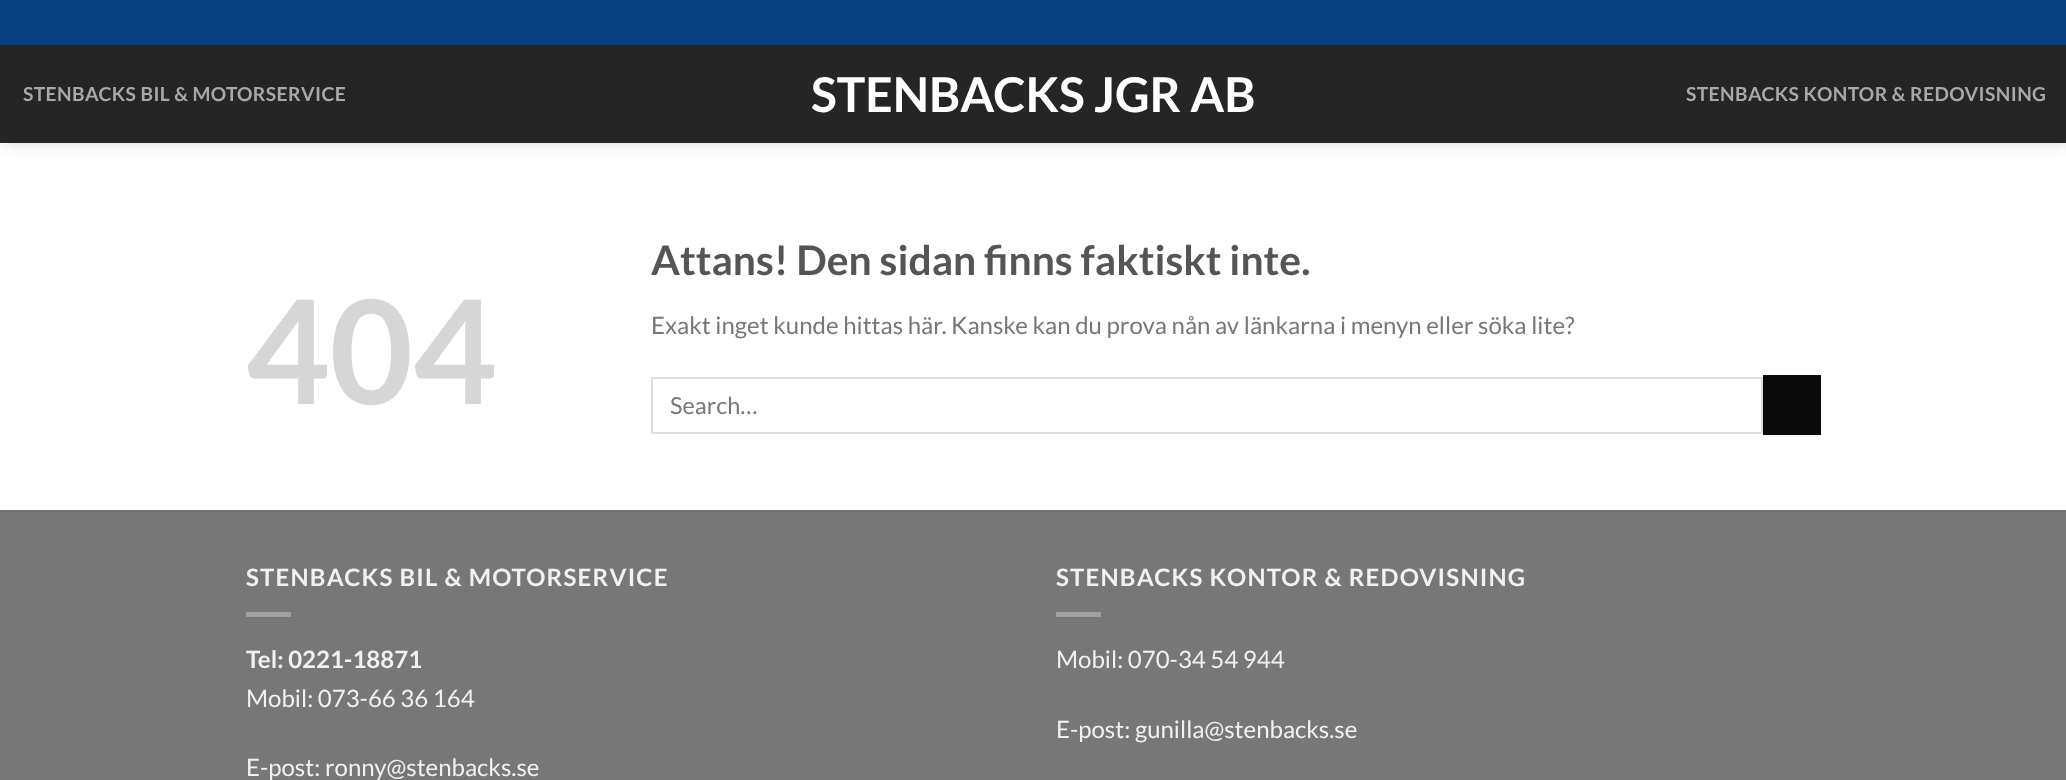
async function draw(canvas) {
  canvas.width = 2066;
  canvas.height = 780;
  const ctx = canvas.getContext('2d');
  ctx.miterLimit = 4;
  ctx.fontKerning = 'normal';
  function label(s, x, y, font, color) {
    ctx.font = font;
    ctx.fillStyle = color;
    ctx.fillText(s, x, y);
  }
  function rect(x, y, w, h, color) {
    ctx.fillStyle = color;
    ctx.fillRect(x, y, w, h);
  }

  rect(0, 0, 2066, 780, '#fff');
  ctx.fillStyle = '#00000026';
  ctx.filter = 'blur(7.5px)';
  ctx.beginPath();
  ctx.rect(2, 2, 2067, 142);
  ctx.fill();
  ctx.filter = 'none';
  rect(0, 45, 2066, 98, '#262525');
  rect(0, 0, 2066, 45, '#06407f');
  ctx.letterSpacing = '0.4px';
  label('STENBACKS BIL & MOTORSERVICE', 23, 101, 'bold 19.25px Lato', '#a8a8a8');
  ctx.letterSpacing = '0px';
  label('STENBACKS JGR AB', 811, 112, 'bold 48px Lato', '#fff');
  ctx.letterSpacing = '0.4px';
  label('STENBACKS KONTOR & REDOVISNING', 1686, 101, 'bold 19.25px Lato', '#a8a8a8');
  ctx.letterSpacing = '0px';
  label('404', 246, 404, 'bold 144px Lato', '#d6d6d6');
  label('Attans! Den sidan finns faktiskt inte.', 651, 275, 'bold 40.75px Lato', '#555');
  label('Exakt inget kunde hittas här. Kanske kan du prova nån av länkarna i menyn eller söka lite?', 651, 334, '24px Lato', '#777');
  ctx.strokeStyle = '#ddd';
  ctx.lineWidth = 2;
  ctx.strokeRect(652, 378, 1110, 55);
  label('Search…', 670, 414, '23.5px Lato', '#777');
  rect(1763, 375, 58, 60, '#0a0a0a');
  rect(0, 512, 2066, 268, '#777');
  rect(0, 510, 2066, 2, '#717171');
  ctx.letterSpacing = '1.2px';
  label('STENBACKS BIL & MOTORSERVICE', 246, 586, 'bold 24px Lato', '#f1f1f1');
  rect(246, 612, 45, 5, '#a0a0a0');
  ctx.letterSpacing = '0px';
  label('Tel: 0221-18871', 246, 668, 'bold 24px Lato', '#f1f1f1');
  label('Mobil: 073-66 36 164', 246, 707, '24px Lato', '#f1f1f1');
  label('E-post: ronny@stenbacks.se', 246, 776, '24px Lato', '#f1f1f1');
  ctx.letterSpacing = '1.2px';
  label('STENBACKS KONTOR & REDOVISNING', 1056, 586, 'bold 24px Lato', '#f1f1f1');
  rect(1056, 612, 45, 5, '#a0a0a0');
  ctx.letterSpacing = '0px';
  label('Mobil: 070-34 54 944', 1056, 668, '24px Lato', '#f1f1f1');
  label('E-post: gunilla@stenbacks.se', 1056, 738, '24px Lato', '#f1f1f1');
}

draw(document.querySelector('canvas'));
